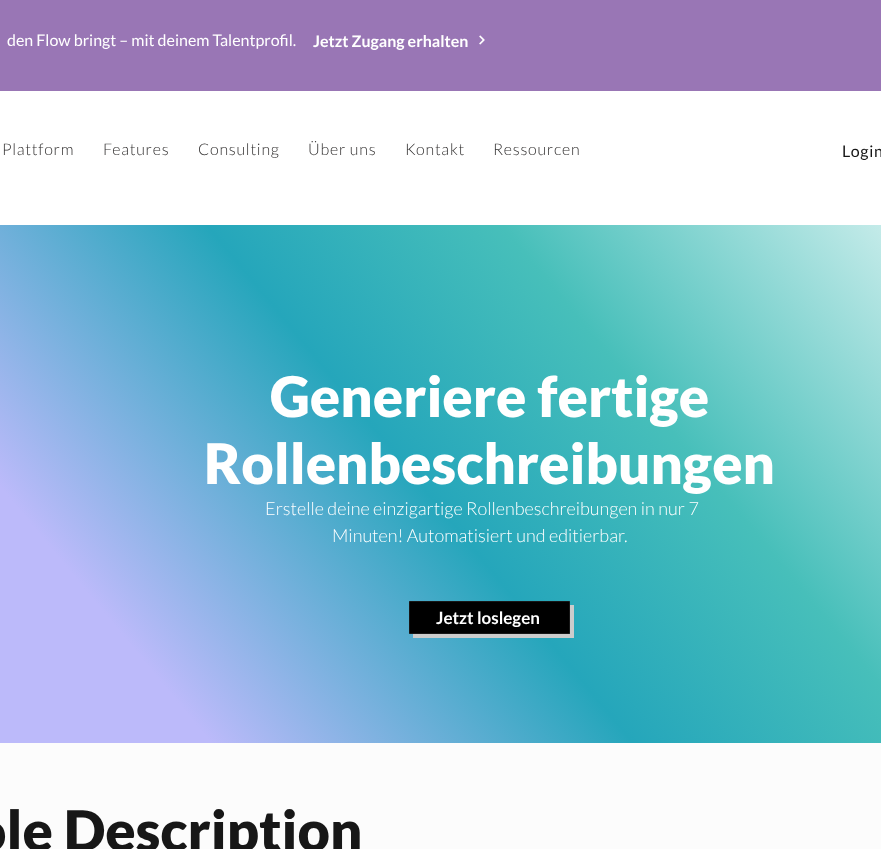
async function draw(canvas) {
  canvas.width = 881;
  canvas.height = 849;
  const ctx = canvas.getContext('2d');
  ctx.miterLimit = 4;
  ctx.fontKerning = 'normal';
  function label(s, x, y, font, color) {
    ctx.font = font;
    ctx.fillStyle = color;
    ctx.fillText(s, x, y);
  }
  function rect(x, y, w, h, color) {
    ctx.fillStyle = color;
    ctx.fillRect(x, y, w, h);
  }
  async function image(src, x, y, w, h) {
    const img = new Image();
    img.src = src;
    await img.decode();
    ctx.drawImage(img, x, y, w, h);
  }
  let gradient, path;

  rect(0, 0, 881, 849, '#fff');
  rect(0, 0, 881, 91, '#9976b5');
  label('den Flow bringt – mit deinem Talentprofil.', 7, 46, '16px Lato', '#fff');
  label('Jetzt Zugang erhalten', 313, 47, 'bold 16px Lato', '#fff');
  await image('assets/img1.png', 479, 35, 6, 10);
  ctx.letterSpacing = '0.75px';
  label('Plattform', 2, 155, '300 16px Lato', '#323030');
  label('Features', 103, 155, '300 16px Lato', '#323030');
  label('Consulting', 198, 155, '300 16px Lato', '#323030');
  label('Über uns', 308, 155, '300 16px Lato', '#323030');
  label('Kontakt', 405, 155, '300 16px Lato', '#323030');
  label('Ressourcen', 493, 155, '300 16px Lato', '#323030');
  label('Login', 842, 157, '16px Lato', '#171717');
  gradient = ctx.createLinearGradient(71, 829, 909, 139);
  gradient.addColorStop(0.15, '#bcbafa');
  gradient.addColorStop(0.45, '#25a6bb');
  gradient.addColorStop(0.66, '#47bfba');
  gradient.addColorStop(1, '#e4f6f5');
  ctx.fillStyle = gradient;
  ctx.fillRect(0, 225, 881, 518);
  ctx.letterSpacing = '0px';
  label('Generiere fertige', 270, 417, '900 56px Lato', '#fff');
  label('Rollenbeschreibungen', 204, 484, '900 56px Lato', '#fff');
  label('Erstelle deine einzigartige Rollenbeschreibungen in nur 7', 265, 515, '300 18px Lato', '#fff');
  label('Minuten! Automatisiert und editierbar.', 332, 542, '300 18px Lato', '#fff');
  ctx.fillStyle = '#ccc';
  path = new Path2D('M413 634V638H574V605H570V634Z');
  ctx.fill(path);
  ctx.fillStyle = '#000';
  ctx.beginPath();
  ctx.rect(409.5, 601.5, 160, 32);
  ctx.fill();
  ctx.strokeStyle = '#171717';
  ctx.stroke();
  label('Jetzt loslegen', 436, 624, 'bold 17px Lato', '#fff');
  rect(0, 743, 881, 106, '#fcfcfc');
  label('ole Description', -26, 851, '900 56px Lato', '#171717');
}

draw(document.querySelector('canvas'));
